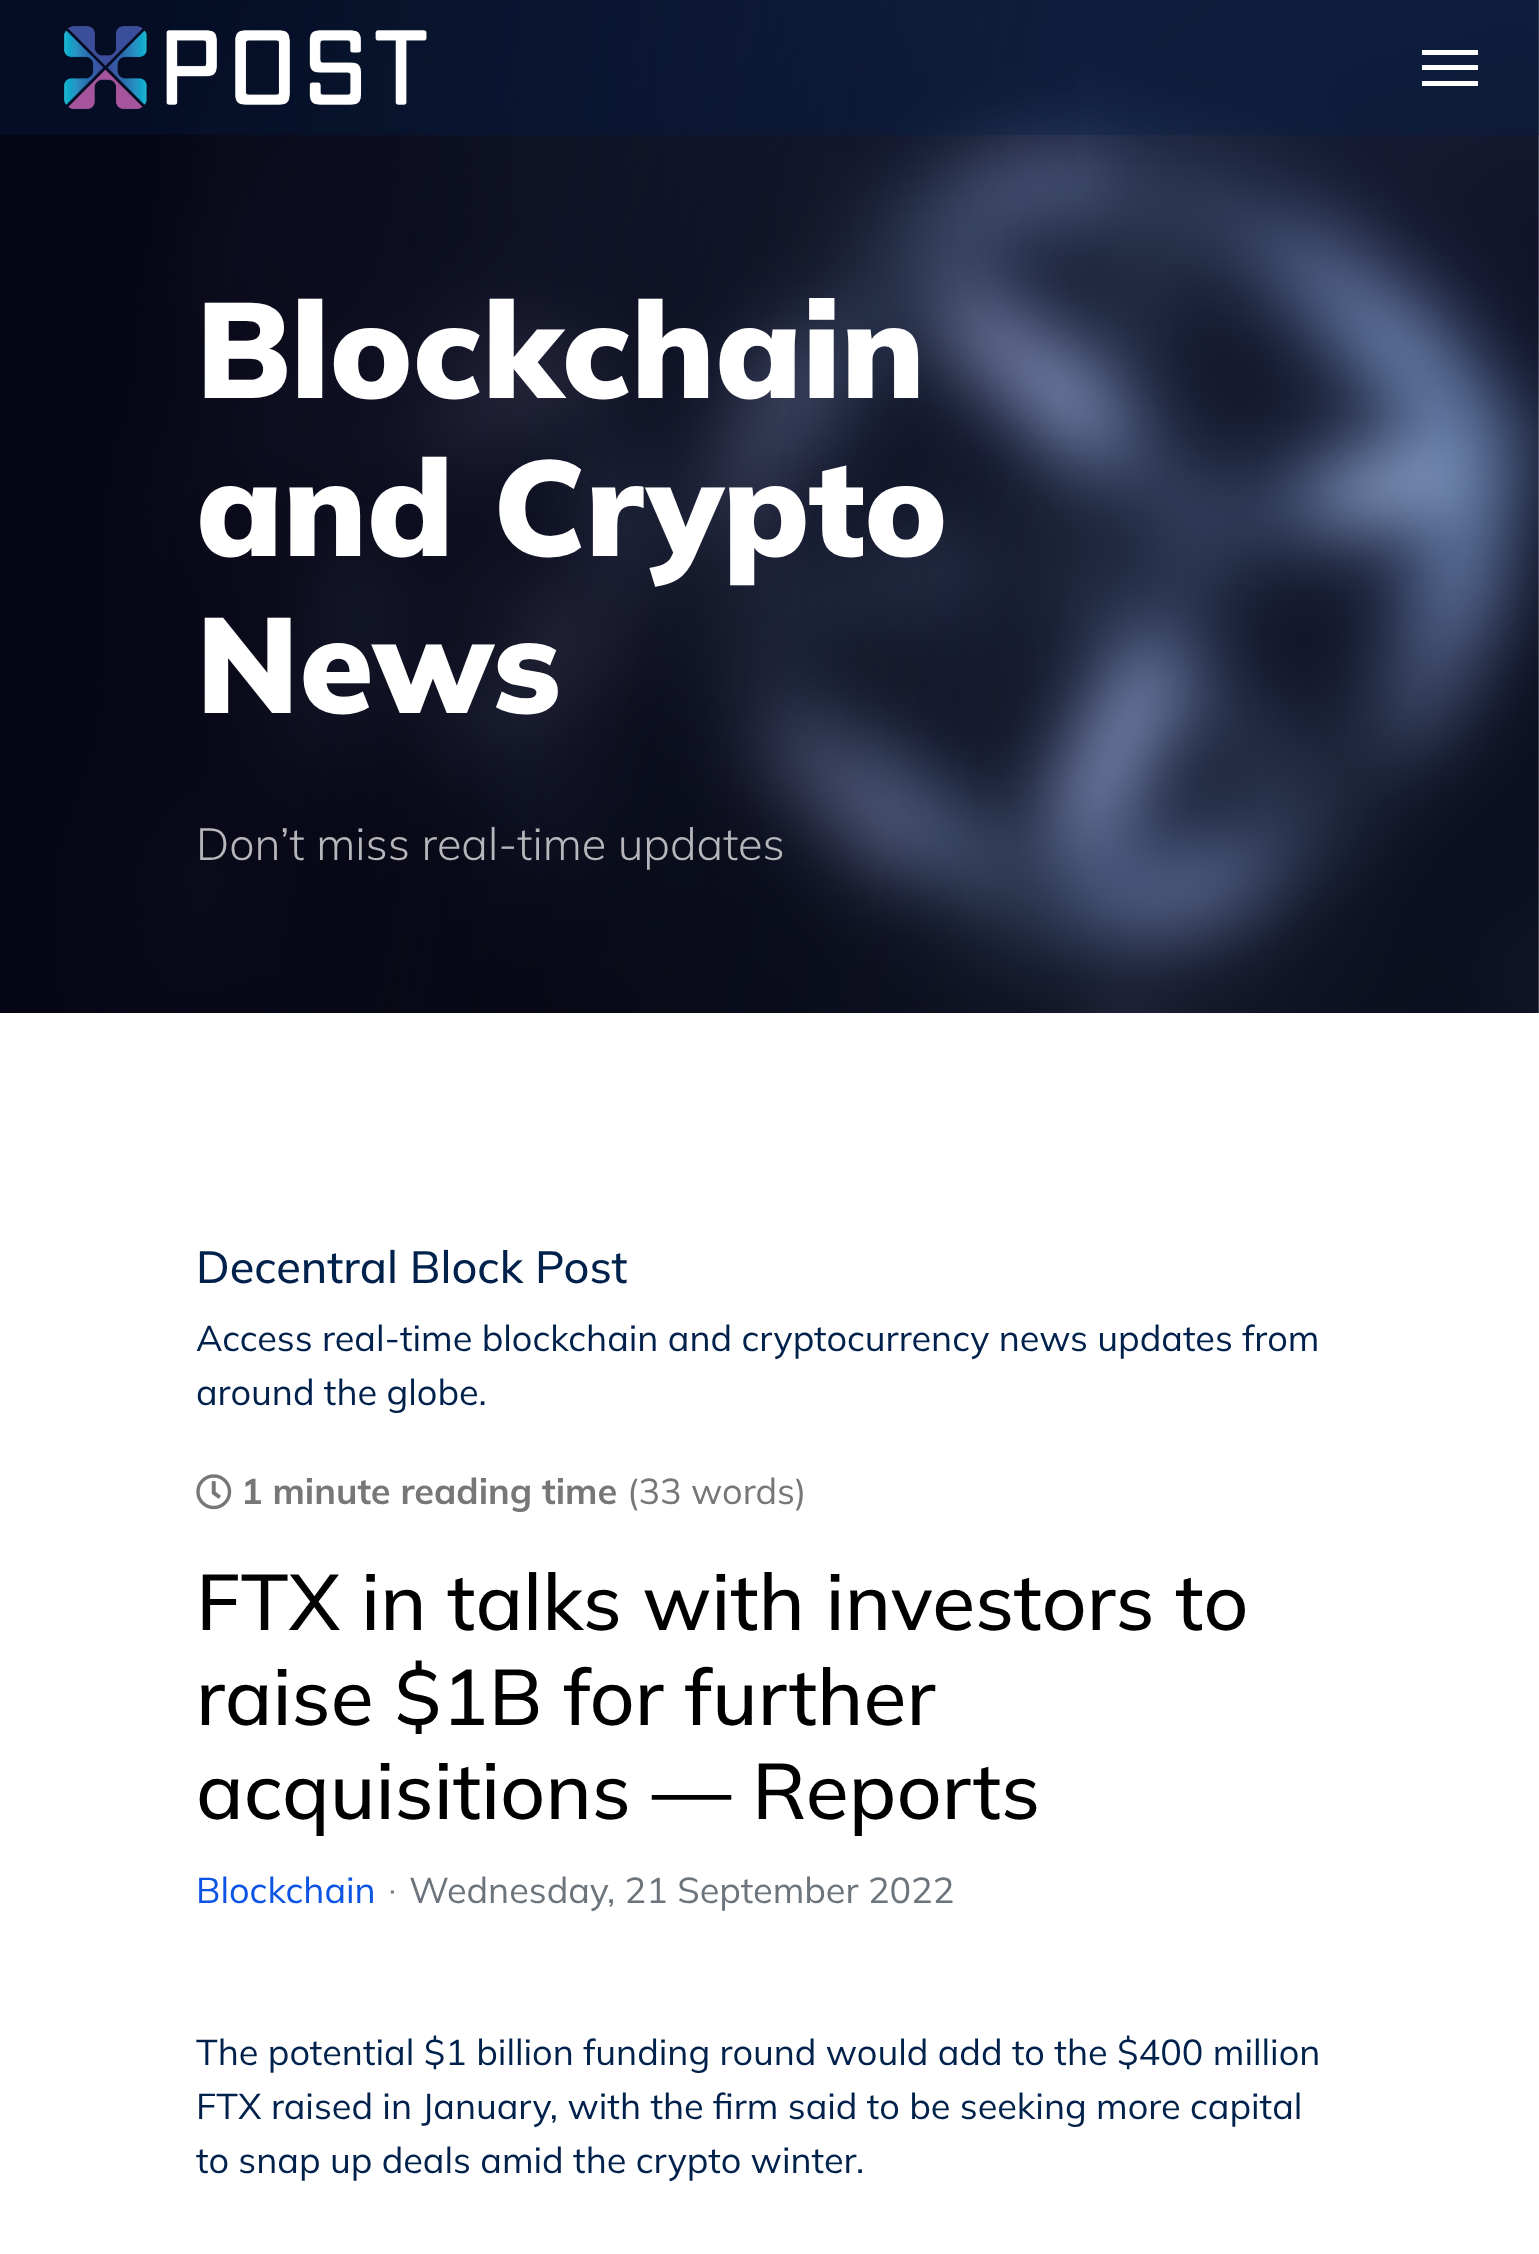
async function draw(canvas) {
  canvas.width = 1539;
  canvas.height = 2254;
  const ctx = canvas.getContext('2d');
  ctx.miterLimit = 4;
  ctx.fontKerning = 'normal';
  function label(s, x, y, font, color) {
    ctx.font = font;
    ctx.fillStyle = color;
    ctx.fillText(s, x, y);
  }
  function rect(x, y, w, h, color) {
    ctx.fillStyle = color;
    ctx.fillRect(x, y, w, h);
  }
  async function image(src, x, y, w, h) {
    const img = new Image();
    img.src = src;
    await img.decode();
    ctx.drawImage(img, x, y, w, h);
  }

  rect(0, 0, 1539, 2254, '#fff');
  await image('assets/img2.png', 0, 0, 1539, 1013);
  rect(0, 0, 1539, 135, '#00214b4d');
  await image('assets/img1.png', 64, 26, 363, 84);
  rect(1422, 50, 56, 5, '#fff');
  rect(1422, 65, 56, 5, '#fff');
  rect(1422, 81, 56, 5, '#fff');
  label('Blockchain', 196, 398, '900 135px Mulish', '#fff');
  label('and Crypto', 196, 556, '900 135px Mulish', '#fff');
  label('News', 196, 713, '900 135px Mulish', '#fff');
  label('Don’t miss real-time updates', 196, 860, '300 45px Mulish', '#b6b6bb');
  label('Decentral Block Post', 196, 1283, '500 45px Mulish', '#00214b');
  label('Access real-time blockchain and cryptocurrency news updates from', 196, 1351, '36px Mulish', '#00214b');
  label('around the globe.', 196, 1405, '36px Mulish', '#00214b');
  await image('assets/img3.png', 196, 1474, 36, 36);
  label('1 minute reading time', 241, 1504, 'bold 36px Mulish', '#777');
  label('(33 words)', 627, 1504, '36px Mulish', '#777');
  label('FTX in talks with investors to', 196, 1630, '500 78.75px Mulish', '#000');
  label('raise $1B for further', 196, 1725, '500 78.75px Mulish', '#000');
  label('acquisitions — Reports', 196, 1819, '500 78.75px Mulish', '#000');
  label('Blockchain', 196, 1903, '36px Mulish', '#0b54e4');
  label('·', 389, 1900, '29px Mulish', '#6c757d');
  label('Wednesday, 21 September 2022', 409, 1903, '36px Mulish', '#6c757d');
  label('The potential $1 billion funding round would add to the $400 million', 196, 2065, '36px Mulish', '#00214b');
  label('FTX raised in January, with the firm said to be seeking more capital', 196, 2119, '36px Mulish', '#00214b');
  label('to snap up deals amid the crypto winter.', 196, 2173, '36px Mulish', '#00214b');
}

draw(document.querySelector('canvas'));
